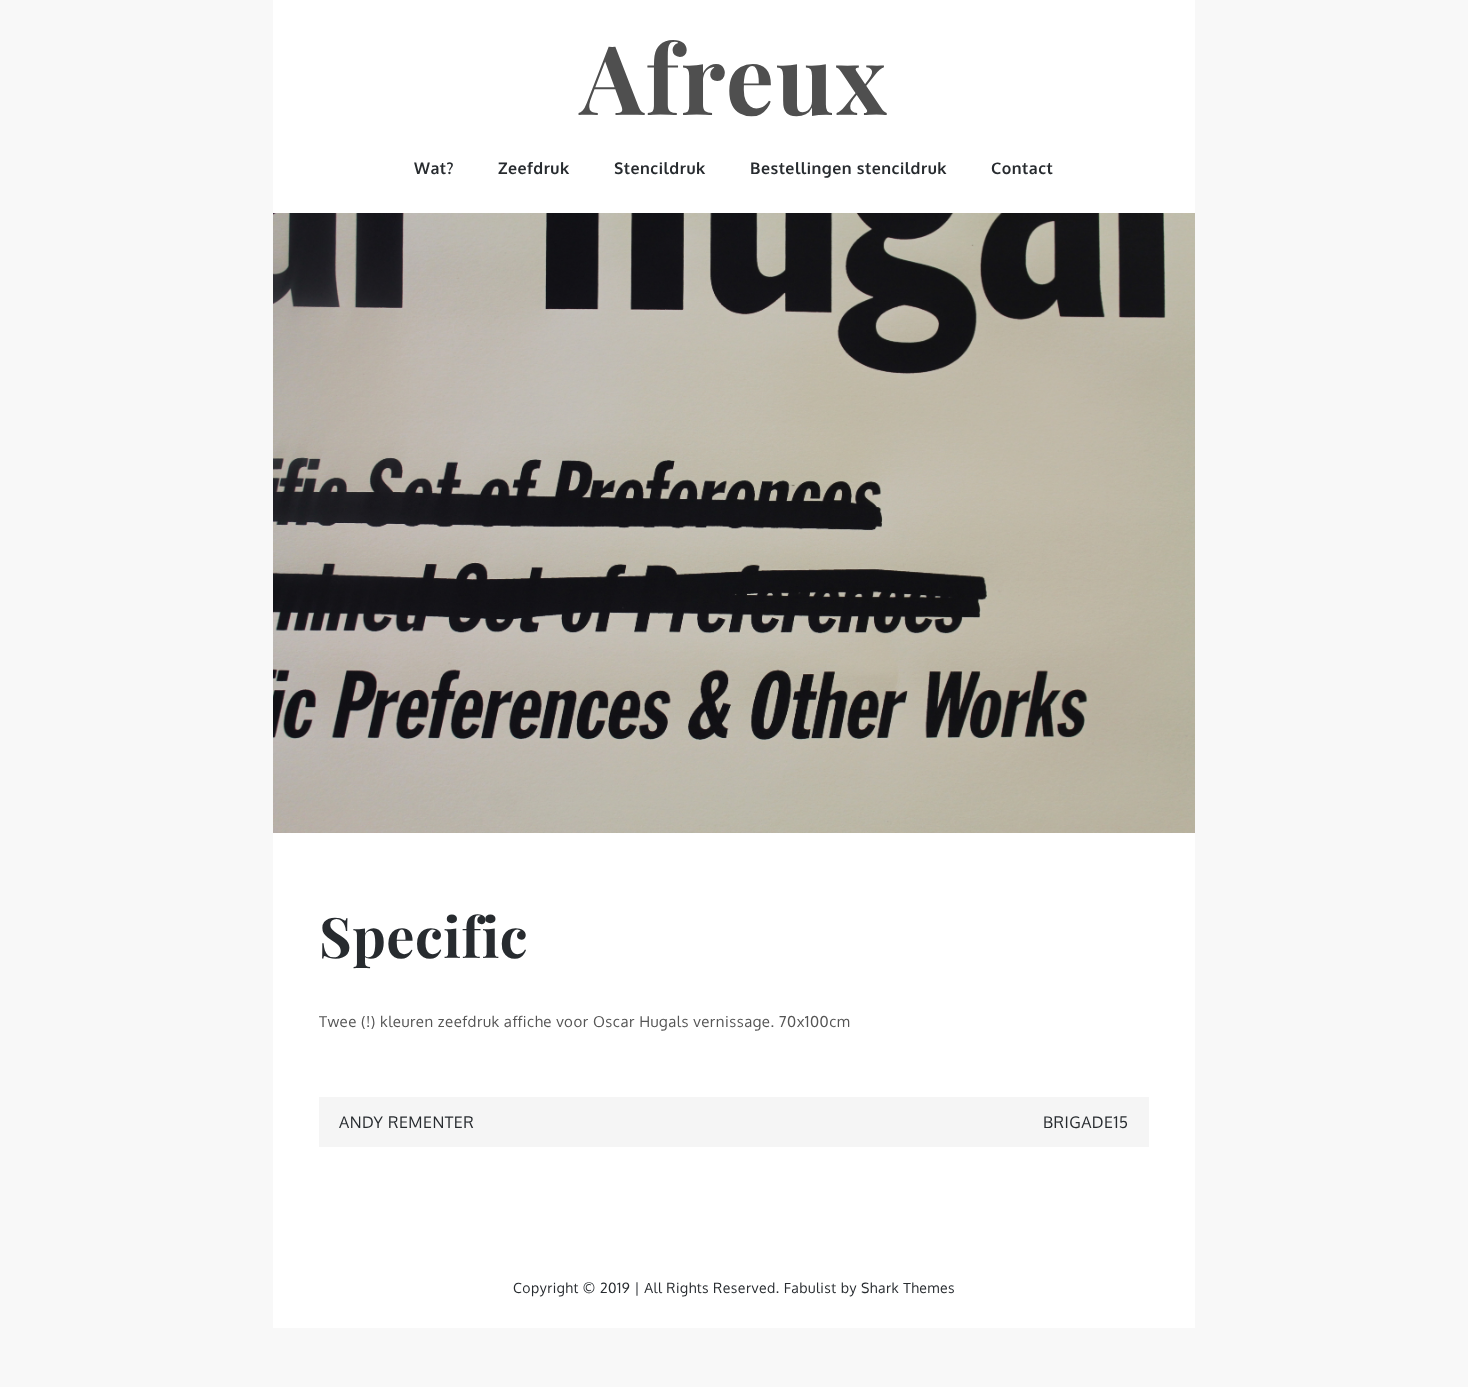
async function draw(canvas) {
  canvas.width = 1468;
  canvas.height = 1387;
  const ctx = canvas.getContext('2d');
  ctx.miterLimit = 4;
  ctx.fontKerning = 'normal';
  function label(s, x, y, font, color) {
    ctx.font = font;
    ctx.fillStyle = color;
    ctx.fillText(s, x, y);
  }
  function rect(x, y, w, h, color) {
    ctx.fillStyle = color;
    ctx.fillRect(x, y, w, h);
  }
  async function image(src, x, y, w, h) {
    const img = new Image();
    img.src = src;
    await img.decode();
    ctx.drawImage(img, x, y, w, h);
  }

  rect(0, 0, 1468, 1387, '#f8f8f8');
  rect(273, 0, 922, 1328, '#fff');
  ctx.letterSpacing = '1.5px';
  label('Afreux', 580, 115, 'bold 96px Playfair Display', '#4f4f4f');
  ctx.letterSpacing = '0.5px';
  label('Wat?', 414, 174, 'bold 16px Oxygen', '#272b2f');
  label('Zeefdruk', 498, 174, 'bold 16px Oxygen', '#272b2f');
  label('Stencildruk', 614, 174, 'bold 16px Oxygen', '#272b2f');
  label('Bestellingen stencildruk', 750, 174, 'bold 16px Oxygen', '#272b2f');
  label('Contact', 991, 174, 'bold 16px Oxygen', '#272b2f');
  await image('assets/img1.png', 273, 213, 922, 620);
  label('Specific', 319, 958, 'bold 56px Playfair Display', '#272b2f');
  label('Twee (!) kleuren zeefdruk affiche voor Oscar Hugals vernissage. 70x100cm', 319, 1027, '15px Oxygen', '#555');
  rect(319, 1097, 830, 50, '#f5f5f5');
  label('ANDY REMENTER', 339, 1128, '16px Oxygen', '#272b2f');
  label('BRIGADE15', 1043, 1128, '16px Oxygen', '#272b2f');
  label('Copyright © 2019 | All Rights Reserved. Fabulist by Shark Themes', 513, 1293, '14px Oxygen', '#272b2f');
}

draw(document.querySelector('canvas'));
